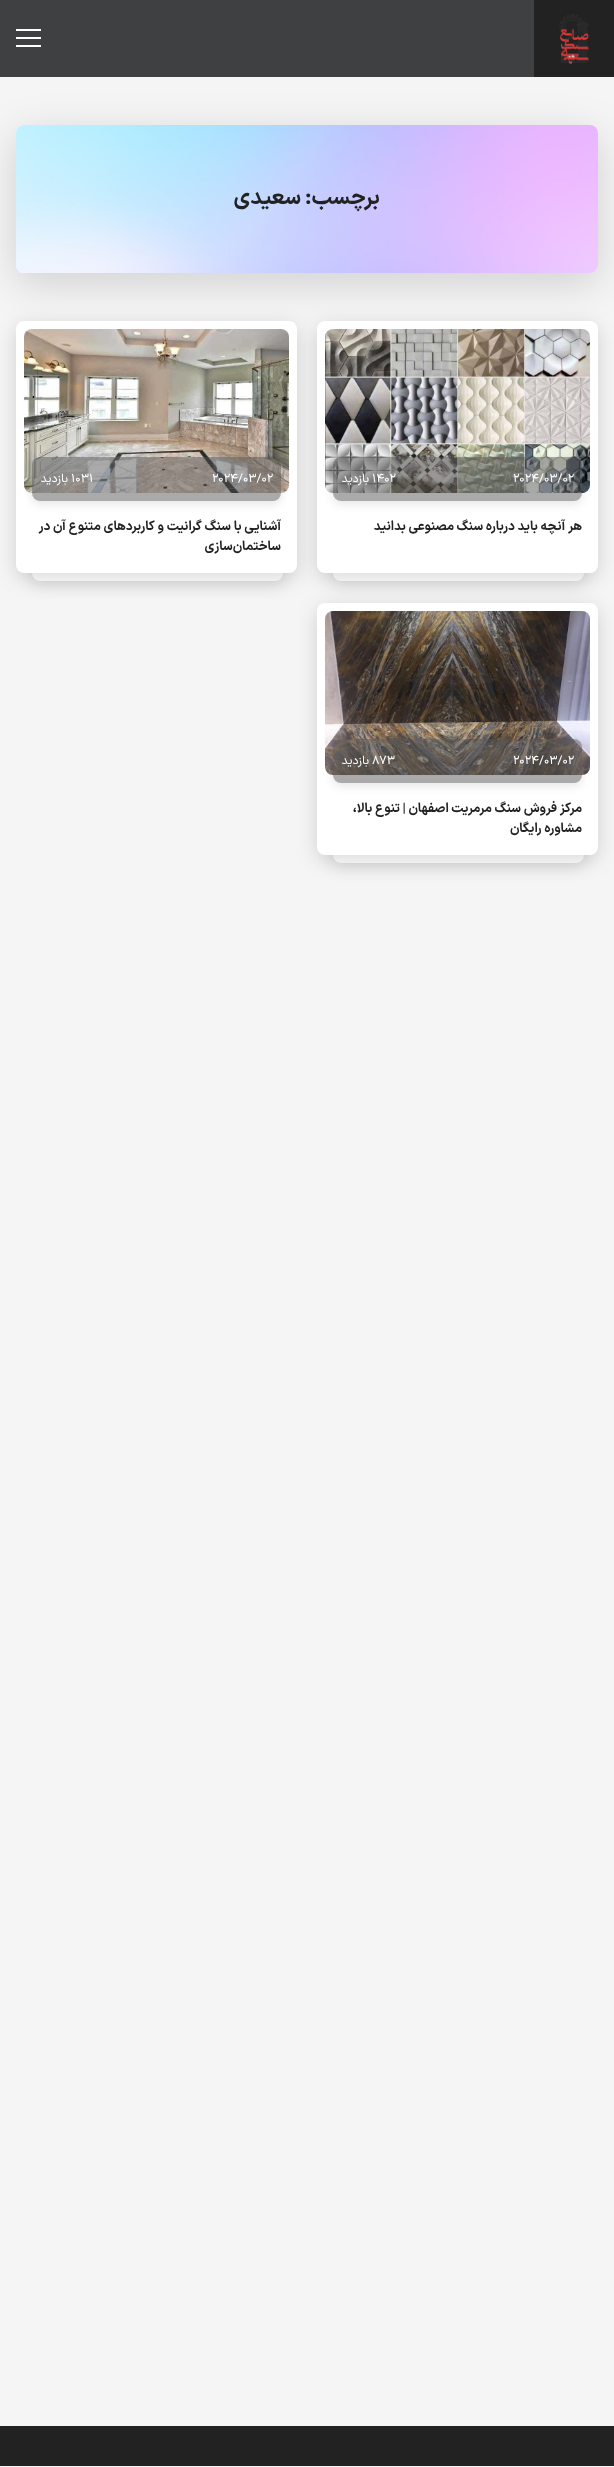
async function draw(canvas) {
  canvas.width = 614;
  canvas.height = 2467;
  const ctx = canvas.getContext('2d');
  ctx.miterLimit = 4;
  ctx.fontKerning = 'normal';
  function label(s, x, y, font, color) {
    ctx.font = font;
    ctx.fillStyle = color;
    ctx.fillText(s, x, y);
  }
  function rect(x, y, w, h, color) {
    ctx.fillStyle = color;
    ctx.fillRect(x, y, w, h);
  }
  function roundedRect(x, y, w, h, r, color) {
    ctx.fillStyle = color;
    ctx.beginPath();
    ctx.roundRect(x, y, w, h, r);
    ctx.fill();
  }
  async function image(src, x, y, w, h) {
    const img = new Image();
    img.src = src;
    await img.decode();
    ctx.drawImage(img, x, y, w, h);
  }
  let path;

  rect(0, 0, 614, 2467, '#f5f5f5');
  ctx.fillStyle = '#00000026';
  ctx.filter = 'blur(20px)';
  ctx.beginPath();
  ctx.roundRect(16, 135, 582, 148, 8);
  ctx.fill();
  ctx.filter = 'none';
  rect(0, 0, 534, 77, '#3e4041');
  rect(534, 0, 80, 77, '#222');
  await image('assets/img1.png', 559, 14, 30, 51);
  rect(16, 45, 25, 2, '#fff');
  rect(16, 29, 25, 2, '#fff');
  rect(16, 37, 25, 2, '#fff');
  roundedRect(16, 125, 582, 148, 8, '#fff');
  await image('assets/img2.png', 16, 125, 582, 148);
  ctx.direction = 'rtl';
  label('برچسب:', 380, 204, 'bold 22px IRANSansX', '#222');
  label('سعیدی', 301, 204, 'bold 22px IRANSansX', '#222');
  ctx.fillStyle = '#0000001a';
  ctx.filter = 'blur(8px)';
  ctx.beginPath();
  ctx.roundRect(333, 536, 251, 50, 8);
  ctx.fill();
  ctx.filter = 'none';
  roundedRect(333, 531, 251, 50, 8, '#fff');
  ctx.fillStyle = '#00000026';
  ctx.filter = 'blur(10px)';
  ctx.beginPath();
  ctx.roundRect(317, 326, 281, 252, 8);
  ctx.fill();
  ctx.filter = 'none';
  roundedRect(317, 321, 281, 252, 8, '#fff');
  await image('assets/img3.png', 325, 329, 265, 164);
  ctx.save();
  path = new Path2D('M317 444H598V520H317ZM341 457H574C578.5 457 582 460.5 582 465V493C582 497.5 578.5 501 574 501H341C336.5 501 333 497.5 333 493V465C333 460.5 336.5 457 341 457Z');
  ctx.clip(path, 'evenodd');
  ctx.fillStyle = '#0000001a';
  ctx.filter = 'blur(5px)';
  ctx.beginPath();
  ctx.roundRect(333, 460, 249, 44, 8);
  ctx.fill();
  ctx.filter = 'none';
  ctx.restore();
  roundedRect(333, 457, 249, 44, 8, '#55555580');
  ctx.direction = 'ltr';
  label('2024/03/02', 513, 482, '12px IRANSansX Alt', '#fff');
  label('1402', 372, 482, '12px IRANSansX Alt', '#fff');
  ctx.direction = 'rtl';
  label('بازدید', 369, 482, '12px IRANSansX', '#fff');
  label('هر آنچه باید درباره سنگ مصنوعی بدانید', 582, 530, 'bold 13px IRANSansX', '#222');
  ctx.fillStyle = '#0000001a';
  ctx.filter = 'blur(8px)';
  ctx.beginPath();
  ctx.roundRect(32, 536, 251, 50, 8);
  ctx.fill();
  ctx.filter = 'none';
  roundedRect(32, 531, 251, 50, 8, '#fff');
  ctx.fillStyle = '#00000026';
  ctx.filter = 'blur(10px)';
  ctx.beginPath();
  ctx.roundRect(16, 326, 281, 252, 8);
  ctx.fill();
  ctx.filter = 'none';
  roundedRect(16, 321, 281, 252, 8, '#fff');
  await image('assets/img4.png', 24, 329, 265, 164);
  ctx.save();
  path = new Path2D('M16 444H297V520H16ZM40 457H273C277.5 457 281 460.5 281 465V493C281 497.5 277.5 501 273 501H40C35.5 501 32 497.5 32 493V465C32 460.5 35.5 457 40 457Z');
  ctx.clip(path, 'evenodd');
  ctx.fillStyle = '#0000001a';
  ctx.filter = 'blur(5px)';
  ctx.beginPath();
  ctx.roundRect(32, 460, 249, 44, 8);
  ctx.fill();
  ctx.filter = 'none';
  ctx.restore();
  roundedRect(32, 457, 249, 44, 8, '#55555580');
  ctx.direction = 'ltr';
  label('2024/03/02', 212, 482, '12px IRANSansX Alt', '#fff');
  label('1031', 71, 482, '12px IRANSansX Alt', '#fff');
  ctx.direction = 'rtl';
  label('بازدید', 68, 482, '12px IRANSansX', '#fff');
  label('آشنایی با سنگ گرانیت و کاربردهای متنوع آن در', 281, 530, 'bold 13px IRANSansX', '#222');
  label('ساختمان‌سازی', 281, 550, 'bold 13px IRANSansX', '#222');
  ctx.fillStyle = '#0000001a';
  ctx.filter = 'blur(8px)';
  ctx.beginPath();
  ctx.roundRect(333, 818, 251, 50, 8);
  ctx.fill();
  ctx.filter = 'none';
  roundedRect(333, 813, 251, 50, 8, '#fff');
  ctx.fillStyle = '#00000026';
  ctx.filter = 'blur(10px)';
  ctx.beginPath();
  ctx.roundRect(317, 608, 281, 252, 8);
  ctx.fill();
  ctx.filter = 'none';
  roundedRect(317, 603, 281, 252, 8, '#fff');
  await image('assets/img5.png', 325, 611, 265, 164);
  ctx.save();
  path = new Path2D('M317 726H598V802H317ZM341 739H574C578.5 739 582 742.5 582 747V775C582 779.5 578.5 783 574 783H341C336.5 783 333 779.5 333 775V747C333 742.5 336.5 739 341 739Z');
  ctx.clip(path, 'evenodd');
  ctx.fillStyle = '#0000001a';
  ctx.filter = 'blur(5px)';
  ctx.beginPath();
  ctx.roundRect(333, 742, 249, 44, 8);
  ctx.fill();
  ctx.filter = 'none';
  ctx.restore();
  roundedRect(333, 739, 249, 44, 8, '#55555580');
  ctx.direction = 'ltr';
  label('2024/03/02', 513, 764, '12px IRANSansX Alt', '#fff');
  label('873', 372, 764, '12px IRANSansX Alt', '#fff');
  ctx.direction = 'rtl';
  label('بازدید', 369, 764, '12px IRANSansX', '#fff');
  label('مرکز فروش سنگ مرمریت اصفهان | تنوع بالا،', 582, 812, 'bold 13px IRANSansX', '#222');
  label('مشاوره رایگان', 582, 832, 'bold 13px IRANSansX', '#222');
  rect(0, 2426, 614, 40, '#222');
}

draw(document.querySelector('canvas'));
